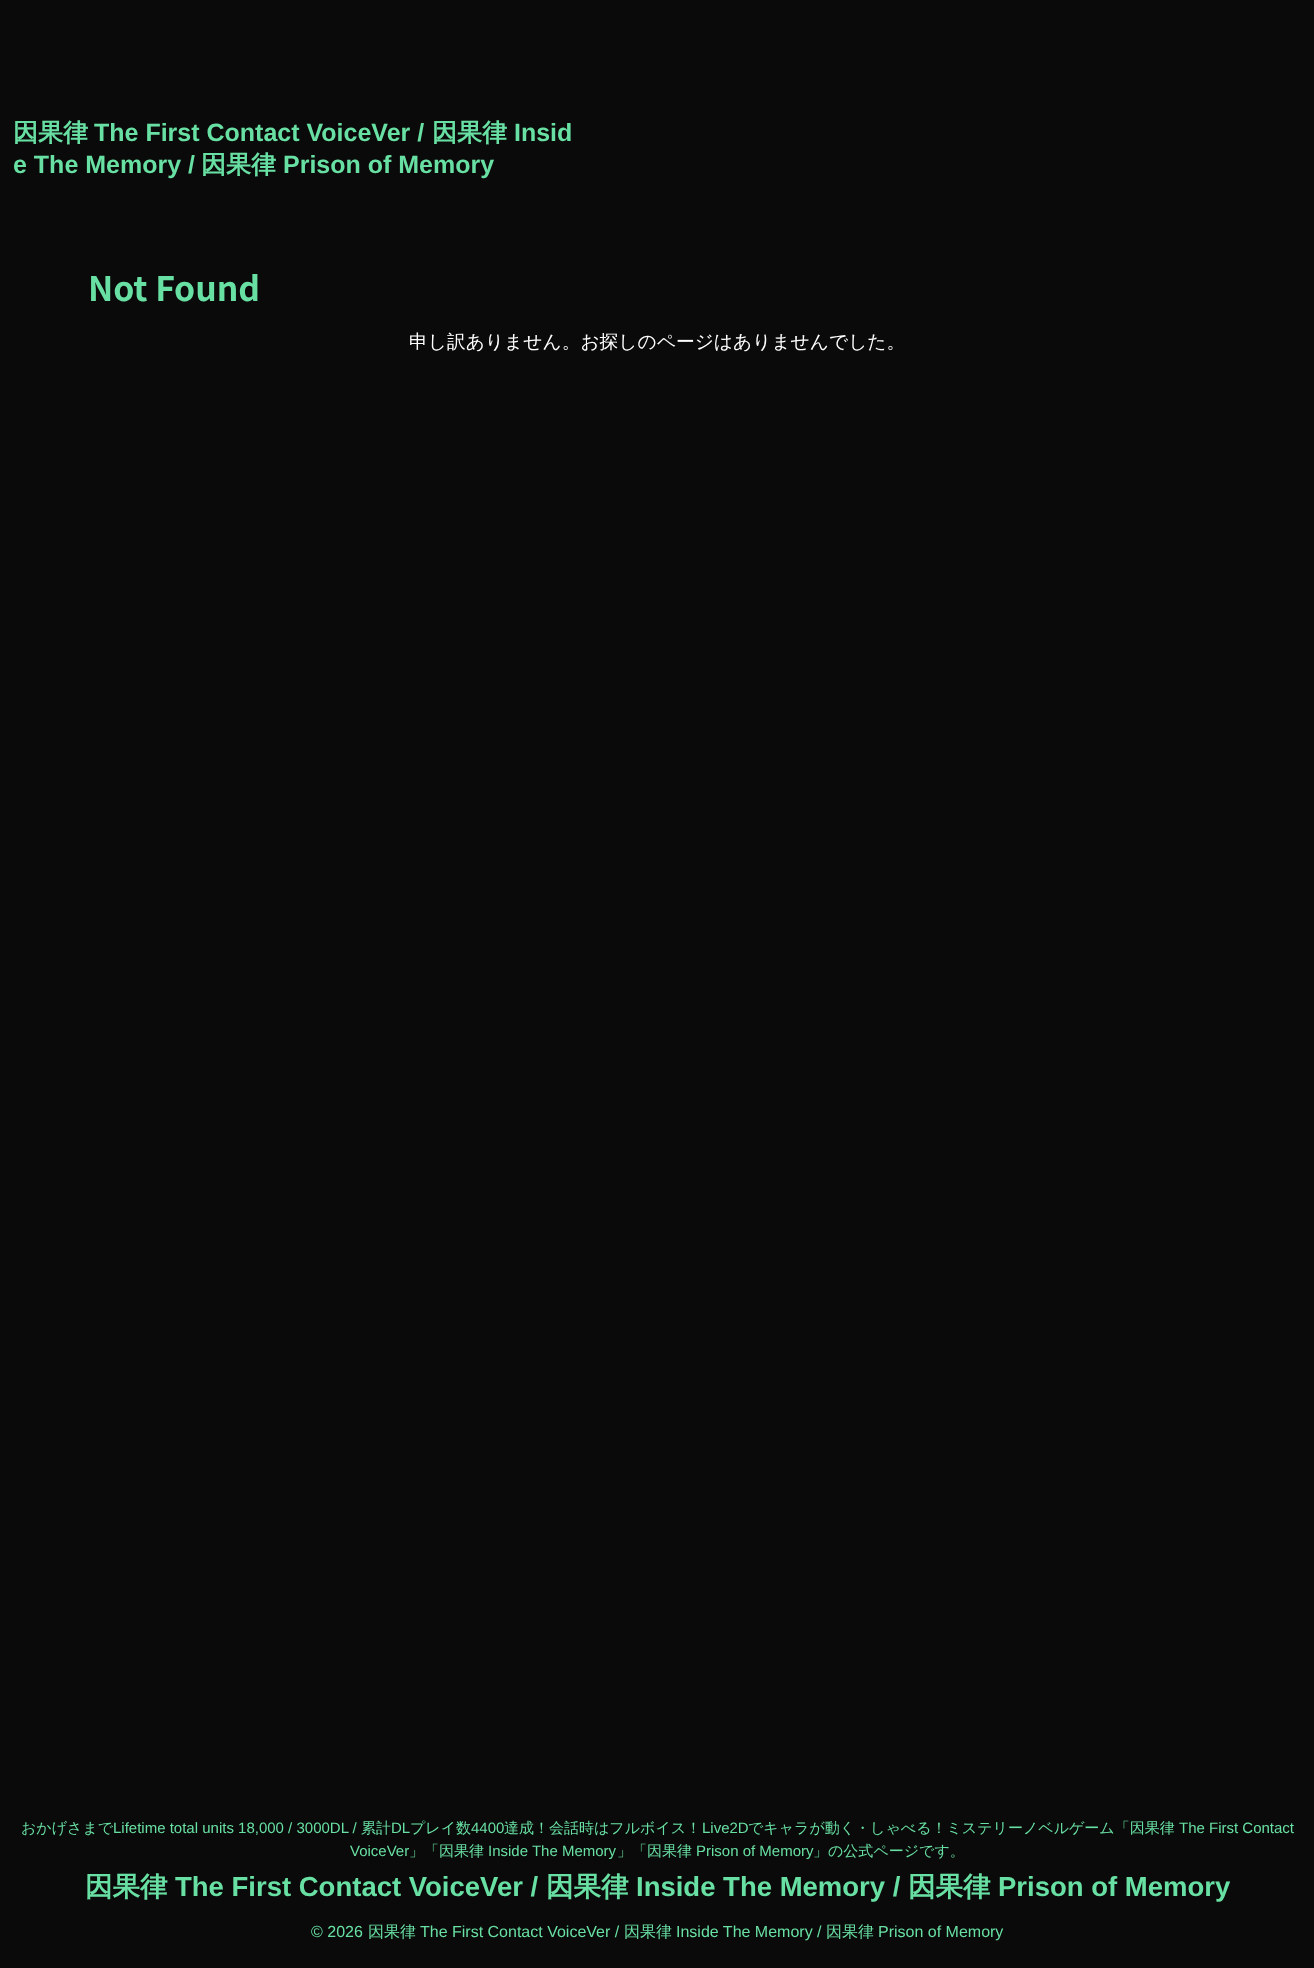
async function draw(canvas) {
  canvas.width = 1314;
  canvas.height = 1968;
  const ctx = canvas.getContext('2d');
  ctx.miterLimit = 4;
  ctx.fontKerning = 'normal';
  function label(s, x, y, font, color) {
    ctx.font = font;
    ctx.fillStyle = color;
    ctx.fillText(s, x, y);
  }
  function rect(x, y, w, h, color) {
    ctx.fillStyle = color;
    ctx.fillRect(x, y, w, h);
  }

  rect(0, 0, 1314, 1968, '#0a0a0a');
  label('因果律', 13, 141, 'bold 25px WenQuanYi Zen Hei', '#68e0a3');
  label('The First Contact VoiceVer /', 94, 141, 'bold 25px Liberation Sans', '#68e0a3');
  label('因果律', 432, 141, 'bold 25px WenQuanYi Zen Hei', '#68e0a3');
  label('Insid', 514, 141, 'bold 25px Liberation Sans', '#68e0a3');
  label('e The Memory /', 13, 173, 'bold 25px Liberation Sans', '#68e0a3');
  label('因果律', 201, 173, 'bold 25px WenQuanYi Zen Hei', '#68e0a3');
  label('Prison of Memory', 283, 173, 'bold 25px Liberation Sans', '#68e0a3');
  label('Not Found', 88, 301, 'bold 33.75px Noto Sans JP', '#68e0a3');
  label('申し訳ありません。お探しのページはありませんでした。', 409, 348, '500 18.75px WenQuanYi Zen Hei', '#fff');
  label('おかげさまで', 21, 1833, '500 15px WenQuanYi Zen Hei', '#68e0a3');
  label('Lifetime total units 18,000 / 3000DL /', 113, 1833, '15px Liberation Sans', '#68e0a3');
  label('累計', 361, 1833, '500 15px WenQuanYi Zen Hei', '#68e0a3');
  label('DL', 391, 1833, '15px Liberation Sans', '#68e0a3');
  label('プレイ数', 410, 1833, '500 15px WenQuanYi Zen Hei', '#68e0a3');
  label('4400', 471, 1833, '15px Liberation Sans', '#68e0a3');
  label('達成！会話時はフルボイス！', 504, 1833, '500 15px WenQuanYi Zen Hei', '#68e0a3');
  label('Live2D', 702, 1833, '15px Liberation Sans', '#68e0a3');
  label('でキャラが動く・しゃべる！ミステリーノベルゲーム「因果律', 748, 1833, '500 15px WenQuanYi Zen Hei', '#68e0a3');
  label('The First Contact', 1179, 1833, '15px Liberation Sans', '#68e0a3');
  label('VoiceVer', 350, 1856, '15px Liberation Sans', '#68e0a3');
  label('」「因果律', 409, 1856, '500 15px WenQuanYi Zen Hei', '#68e0a3');
  label('Inside The Memory', 488, 1856, '15px Liberation Sans', '#68e0a3');
  label('」「因果律', 617, 1856, '500 15px WenQuanYi Zen Hei', '#68e0a3');
  label('Prison of Memory', 696, 1856, '15px Liberation Sans', '#68e0a3');
  label('」の公式ページです。', 813, 1856, '500 15px WenQuanYi Zen Hei', '#68e0a3');
  label('因果律', 85, 1896, 'bold 27.5px WenQuanYi Zen Hei', '#68e0a3');
  label('The First Contact VoiceVer /', 175, 1896, 'bold 27.5px Liberation Sans', '#68e0a3');
  label('因果律', 546, 1896, 'bold 27.5px WenQuanYi Zen Hei', '#68e0a3');
  label('Inside The Memory /', 636, 1896, 'bold 27.5px Liberation Sans', '#68e0a3');
  label('因果律', 908, 1896, 'bold 27.5px WenQuanYi Zen Hei', '#68e0a3');
  label('Prison of Memory', 998, 1896, 'bold 27.5px Liberation Sans', '#68e0a3');
  label('© 2026', 311, 1937, '16px Liberation Sans', '#68e0a3');
  label('因果律', 368, 1937, '500 16px WenQuanYi Zen Hei', '#68e0a3');
  label('The First Contact VoiceVer /', 420, 1937, '16px Liberation Sans', '#68e0a3');
  label('因果律', 624, 1937, '500 16px WenQuanYi Zen Hei', '#68e0a3');
  label('Inside The Memory /', 676, 1937, '16px Liberation Sans', '#68e0a3');
  label('因果律', 826, 1937, '500 16px WenQuanYi Zen Hei', '#68e0a3');
  label('Prison of Memory', 878, 1937, '16px Liberation Sans', '#68e0a3');
}

draw(document.querySelector('canvas'));
